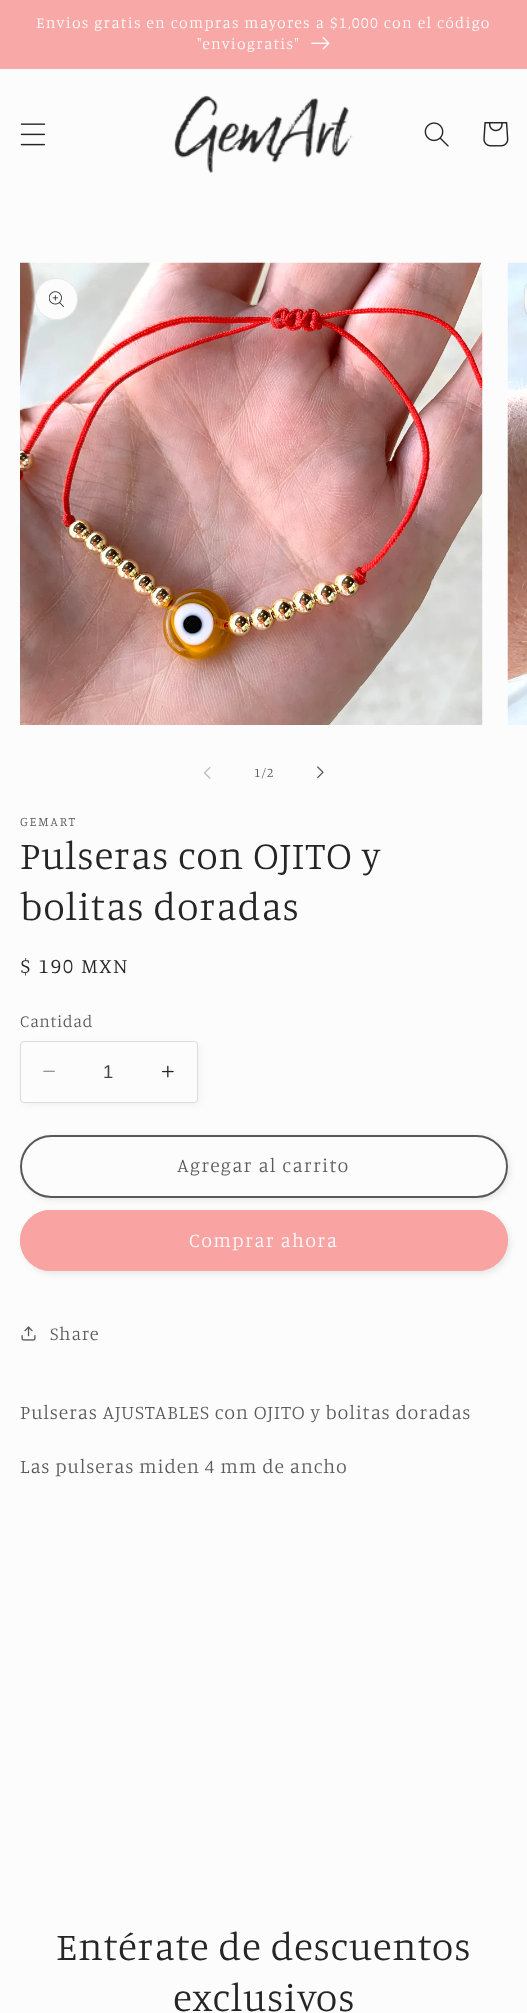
async function draw(canvas) {
  canvas.width = 527;
  canvas.height = 2013;
  const ctx = canvas.getContext('2d');
  ctx.miterLimit = 4;
  ctx.fontKerning = 'normal';
  function label(s, x, y, font, color) {
    ctx.font = font;
    ctx.fillStyle = color;
    ctx.fillText(s, x, y);
  }
  function rect(x, y, w, h, color) {
    ctx.fillStyle = color;
    ctx.fillRect(x, y, w, h);
  }
  function roundedRect(x, y, w, h, r, color) {
    ctx.fillStyle = color;
    ctx.beginPath();
    ctx.roundRect(x, y, w, h, r);
    ctx.fill();
  }
  async function image(src, x, y, w, h) {
    const img = new Image();
    img.src = src;
    await img.decode();
    ctx.drawImage(img, x, y, w, h);
  }
  let path;

  rect(0, 0, 527, 2013, '#fcfcfc');
  rect(0, 68, 527, 1, '#f9aaaa');
  rect(0, 0, 527, 68, '#f9a8a8');
  ctx.letterSpacing = '1.3px';
  label('Envios gratis en compras mayores a $1,000 con el código', 36, 28, '300 15.75px Manuale', '#fcfcfc');
  label('"enviogratis"', 197, 49, '300 15.75px Manuale', '#fcfcfc');
  await image('assets/img1.png', 311, 37, 19, 13);
  await image('assets/img2.png', 20, 123, 26, 23);
  await image('assets/img3.png', 174, 95, 179, 78);
  await image('assets/img4.png', 424, 122, 25, 25);
  await image('assets/img5.png', 483, 122, 26, 25);
  await image('assets/img6.png', 20, 262, 463, 463);
  roundedRect(35, 278, 43, 42, 21, '#fcfcfc');
  ctx.beginPath();
  ctx.roundRect(35.5, 278.5, 42, 41, 20.5);
  ctx.strokeStyle = '#2525251a';
  ctx.stroke();
  await image('assets/img7.png', 49, 291, 15, 16);
  await image('assets/img8.png', 507, 262, 20, 463);
  path = new Path2D('M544.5 278H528V320H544.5C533 320 524 311 524 299.5V298.5C524 287 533 278 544.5 278Z');
  ctx.fill(path);
  ctx.beginPath();
  ctx.roundRect(524.5, 278.5, 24, 41, 20);
  ctx.stroke();
  await image('assets/img9.png', 204, 767, 7, 12);
  ctx.letterSpacing = '1px';
  label('1/2', 254, 777, '300 13px Manuale', '#5b5b5b');
  await image('assets/img10.png', 317, 766, 7, 13);
  ctx.letterSpacing = '1.75px';
  label('GEMART', 20, 826, '300 13px Manuale', '#5b5b5b');
  ctx.letterSpacing = '0.8px';
  label('Pulseras con OJITO y', 20, 869, '300 39.4px Manuale', '#252525');
  label('bolitas doradas', 20, 920, '300 39.4px Manuale', '#252525');
  ctx.letterSpacing = '1.75px';
  label('$ 190 MXN', 20, 973, '300 21px Manuale', '#252525');
  ctx.letterSpacing = '0.5px';
  label('Cantidad', 20, 1027, '300 17px Manuale', '#5b5b5b');
  ctx.fillStyle = '#2525250d';
  ctx.filter = 'blur(3px)';
  ctx.beginPath();
  ctx.roundRect(23, 1044, 177, 61, 4);
  ctx.fill();
  ctx.filter = 'none';
  roundedRect(20, 1041, 178, 62, 4, '#fcfcfc');
  await image('assets/img11.png', 43, 1070, 12, 2);
  await image('assets/img12.png', 161, 1065, 13, 13);
  ctx.beginPath();
  ctx.roundRect(20.5, 1041.5, 177, 61, 3.5);
  ctx.strokeStyle = '#dcdcdc';
  ctx.stroke();
  ctx.letterSpacing = '0px';
  label('1', 103, 1078, '18.5px Liberation Sans', '#454545');
  ctx.fillStyle = '#2525251a';
  ctx.filter = 'blur(3px)';
  ctx.beginPath();
  ctx.roundRect(23, 1138, 487, 62, 31);
  ctx.fill();
  ctx.filter = 'none';
  roundedRect(20, 1135, 488, 63, 31.5, '#fcfcfc');
  ctx.beginPath();
  ctx.roundRect(20.5, 1135.5, 487, 62, 31);
  ctx.strokeStyle = '#fcfcfc';
  ctx.stroke();
  ctx.beginPath();
  ctx.roundRect(21, 1136, 486, 61, 30.5);
  ctx.strokeStyle = '#585858';
  ctx.lineWidth = 2;
  ctx.stroke();
  ctx.letterSpacing = '1.3px';
  label('Agregar al carrito', 177, 1172, '300 19.7px Manuale', '#5b5b5b');
  ctx.fillStyle = '#2525251a';
  ctx.filter = 'blur(3px)';
  ctx.beginPath();
  ctx.roundRect(23, 1213, 487, 61, 30.5);
  ctx.fill();
  ctx.filter = 'none';
  roundedRect(20, 1210, 488, 61, 30.5, '#f9a3a3');
  ctx.beginPath();
  ctx.roundRect(20.5, 1210.5, 487, 60, 30);
  ctx.strokeStyle = '#f9a3a3';
  ctx.lineWidth = 1;
  ctx.stroke();
  label('Comprar ahora', 189, 1247, '300 19.7px Manuale', '#fcfcfc');
  await image('assets/img13.png', 21, 1326, 15, 15);
  ctx.letterSpacing = '0.8px';
  label('Share', 50, 1340, '300 18.5px Manuale', '#5b5b5b');
  label('Pulseras AJUSTABLES con OJITO y bolitas doradas', 20, 1419, '300 19.7px Manuale', '#5b5b5b');
  label('Las pulseras miden 4 mm de ancho', 20, 1473, '300 19.7px Manuale', '#5b5b5b');
  label('Entérate de descuentos', 56, 1960, '300 39.4px Manuale', '#252525');
  label('exclusivos', 173, 2011, '300 39.4px Manuale', '#252525');
}

draw(document.querySelector('canvas'));
